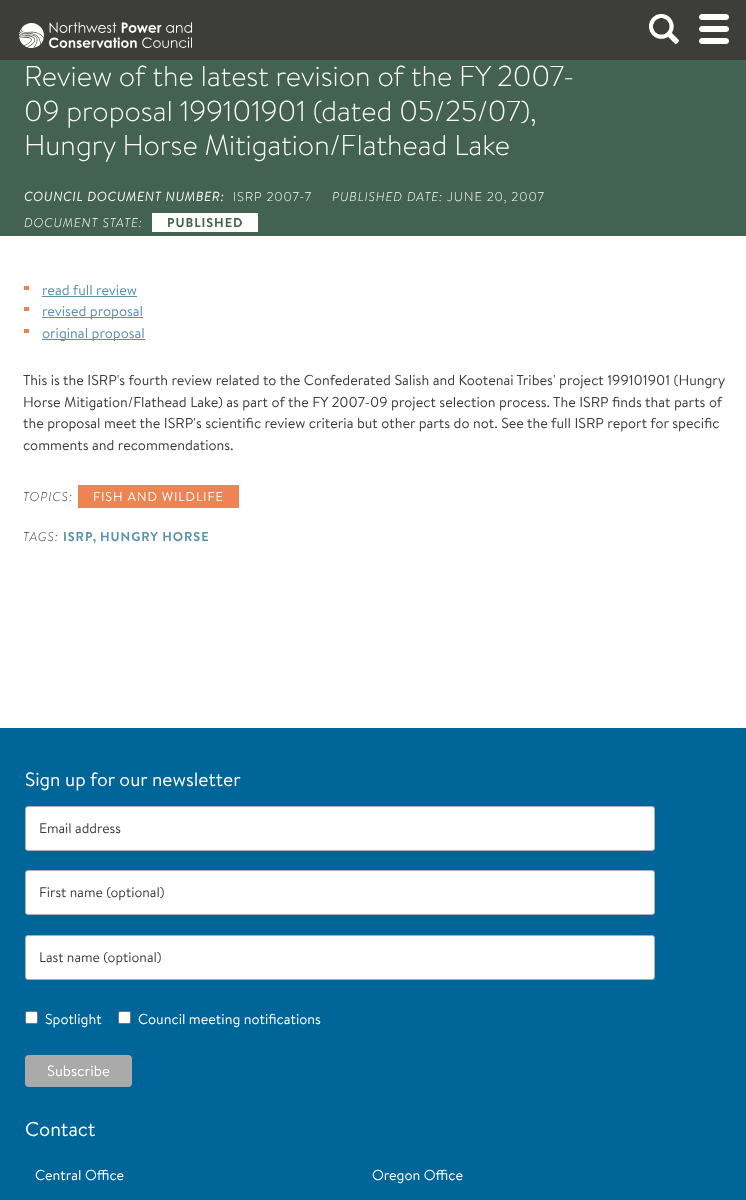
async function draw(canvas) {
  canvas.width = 746;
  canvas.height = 1200;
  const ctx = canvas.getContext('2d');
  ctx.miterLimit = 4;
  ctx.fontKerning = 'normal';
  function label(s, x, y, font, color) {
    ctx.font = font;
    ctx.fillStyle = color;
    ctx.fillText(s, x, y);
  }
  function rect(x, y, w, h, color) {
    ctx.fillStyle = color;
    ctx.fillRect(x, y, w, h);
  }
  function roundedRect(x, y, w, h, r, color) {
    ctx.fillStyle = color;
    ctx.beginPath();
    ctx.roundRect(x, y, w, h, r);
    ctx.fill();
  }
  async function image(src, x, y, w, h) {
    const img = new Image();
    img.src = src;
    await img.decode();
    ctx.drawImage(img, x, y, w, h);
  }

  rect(0, 0, 746, 1200, '#fff');
  rect(0, 0, 746, 60, '#3d3e39');
  await image('assets/img1.png', 19, 22, 174, 26);
  await image('assets/img2.png', 649, 14, 30, 30);
  await image('assets/img3.png', 699, 14, 30, 30);
  rect(0, 60, 746, 176, '#446252');
  label('Review of the latest revision of the FY 2007-', 24, 86, '300 28.75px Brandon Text', '#fff');
  label('09 proposal 199101901 (dated 05/25/07),', 24, 121, '300 28.75px Brandon Text', '#fff');
  label('Hungry Horse Mitigation/Flathead Lake', 24, 155, '300 28.75px Brandon Text', '#fff');
  ctx.letterSpacing = '0.9px';
  label('COUNCIL DOCUMENT NUMBER:', 24, 201, 'italic bold 12.75px Brandon Text', '#fff');
  label('ISRP 2007-7', 233, 201, '300 12.75px Brandon Text', '#fff');
  label('PUBLISHED DATE:', 332, 201, 'italic 300 12.75px Brandon Text', '#fff');
  label('JUNE 20, 2007', 447, 201, '300 12.75px Brandon Text', '#fff');
  label('DOCUMENT STATE:', 24, 227, 'italic 300 12.75px Brandon Text', '#fff');
  rect(152, 213, 106, 19, '#fff');
  label('PUBLISHED', 167, 227, 'bold 12.75px Brandon Text', '#446252');
  rect(24, 286, 5, 4, '#ee8153');
  ctx.letterSpacing = '0px';
  label('read full review', 42, 295, '14.4px Brandon Text', '#5a92ae');
  rect(42, 296, 95, 1, '#5a92ae');
  rect(24, 307, 5, 4, '#ee8153');
  rect(42, 317, 101, 1, '#5a92ae');
  label('revised proposal', 42, 316, '14.4px Brandon Text', '#5a92ae');
  rect(24, 329, 5, 4, '#ee8153');
  rect(42, 339, 103, 1, '#5a92ae');
  label('original proposal', 42, 338, '14.4px Brandon Text', '#5a92ae');
  label('This is the ISRP\'s fourth review related to the Confederated Salish and Kootenai Tribes\' project 199101901 (Hungry', 23, 385, '14.4px Brandon Text', '#3d3e39');
  label('Horse Mitigation/Flathead Lake) as part of the FY 2007-09 project selection process. The ISRP finds that parts of', 23, 407, '14.4px Brandon Text', '#3d3e39');
  label('the proposal meet the ISRP\'s scientific review criteria but other parts do not. See the full ISRP report for specific', 23, 428, '14.4px Brandon Text', '#3d3e39');
  label('comments and recommendations.', 23, 450, '14.4px Brandon Text', '#3d3e39');
  ctx.letterSpacing = '0.9px';
  label('TOPICS:', 23, 501, 'italic 300 12.75px Brandon Text', '#3d3e39');
  rect(78, 485, 161, 23, '#ee8353');
  label('FISH AND WILDLIFE', 93, 501, '12.75px Brandon Text', '#fff');
  label('TAGS:', 23, 541, 'italic 300 12.75px Brandon Text', '#3d3e39');
  label('ISRP,', 63, 541, 'bold 12.75px Brandon Text', '#5a92ae');
  label('HUNGRY HORSE', 100, 541, 'bold 12.75px Brandon Text', '#5a92ae');
  rect(0, 728, 746, 472, '#069');
  ctx.letterSpacing = '0px';
  label('Sign up for our newsletter', 25, 786, '19.25px Brandon Text', '#fff');
  ctx.beginPath();
  ctx.roundRect(25.5, 806.5, 629, 44, 2.5);
  ctx.fill();
  ctx.strokeStyle = '#abb0b2';
  ctx.stroke();
  label('Email address', 39, 833, '14px Brandon Text', '#3d3e39');
  ctx.fillStyle = '#fff';
  ctx.beginPath();
  ctx.roundRect(25.5, 870.5, 629, 44, 2.5);
  ctx.fill();
  ctx.stroke();
  label('First name (optional)', 39, 897, '14px Brandon Text', '#3d3e39');
  ctx.fillStyle = '#fff';
  ctx.beginPath();
  ctx.roundRect(25.5, 935.5, 629, 44, 2.5);
  ctx.fill();
  ctx.stroke();
  label('Last name (optional)', 39, 962, '14px Brandon Text', '#3d3e39');
  ctx.fillStyle = '#fff';
  ctx.beginPath();
  ctx.roundRect(25.5, 1011.5, 12, 12, 1.5);
  ctx.fill();
  ctx.strokeStyle = '#767676';
  ctx.stroke();
  label('Spotlight', 45, 1024, '14.4px Brandon Text', '#fff');
  ctx.beginPath();
  ctx.roundRect(118.5, 1011.5, 12, 12, 1.5);
  ctx.fill();
  ctx.stroke();
  label('Council meeting notifications', 138, 1024, '14.4px Brandon Text', '#fff');
  roundedRect(25, 1055, 107, 32, 4, '#aaa');
  label('Subscribe', 47, 1076, '15px Brandon Text', '#fff');
  label('Contact', 25, 1136, '20px Brandon Text', '#fff');
  label('Central Office', 35, 1180, '14.4px Brandon Text', '#fff');
  label('Oregon Office', 372, 1180, '14.4px Brandon Text', '#fff');
}

draw(document.querySelector('canvas'));
